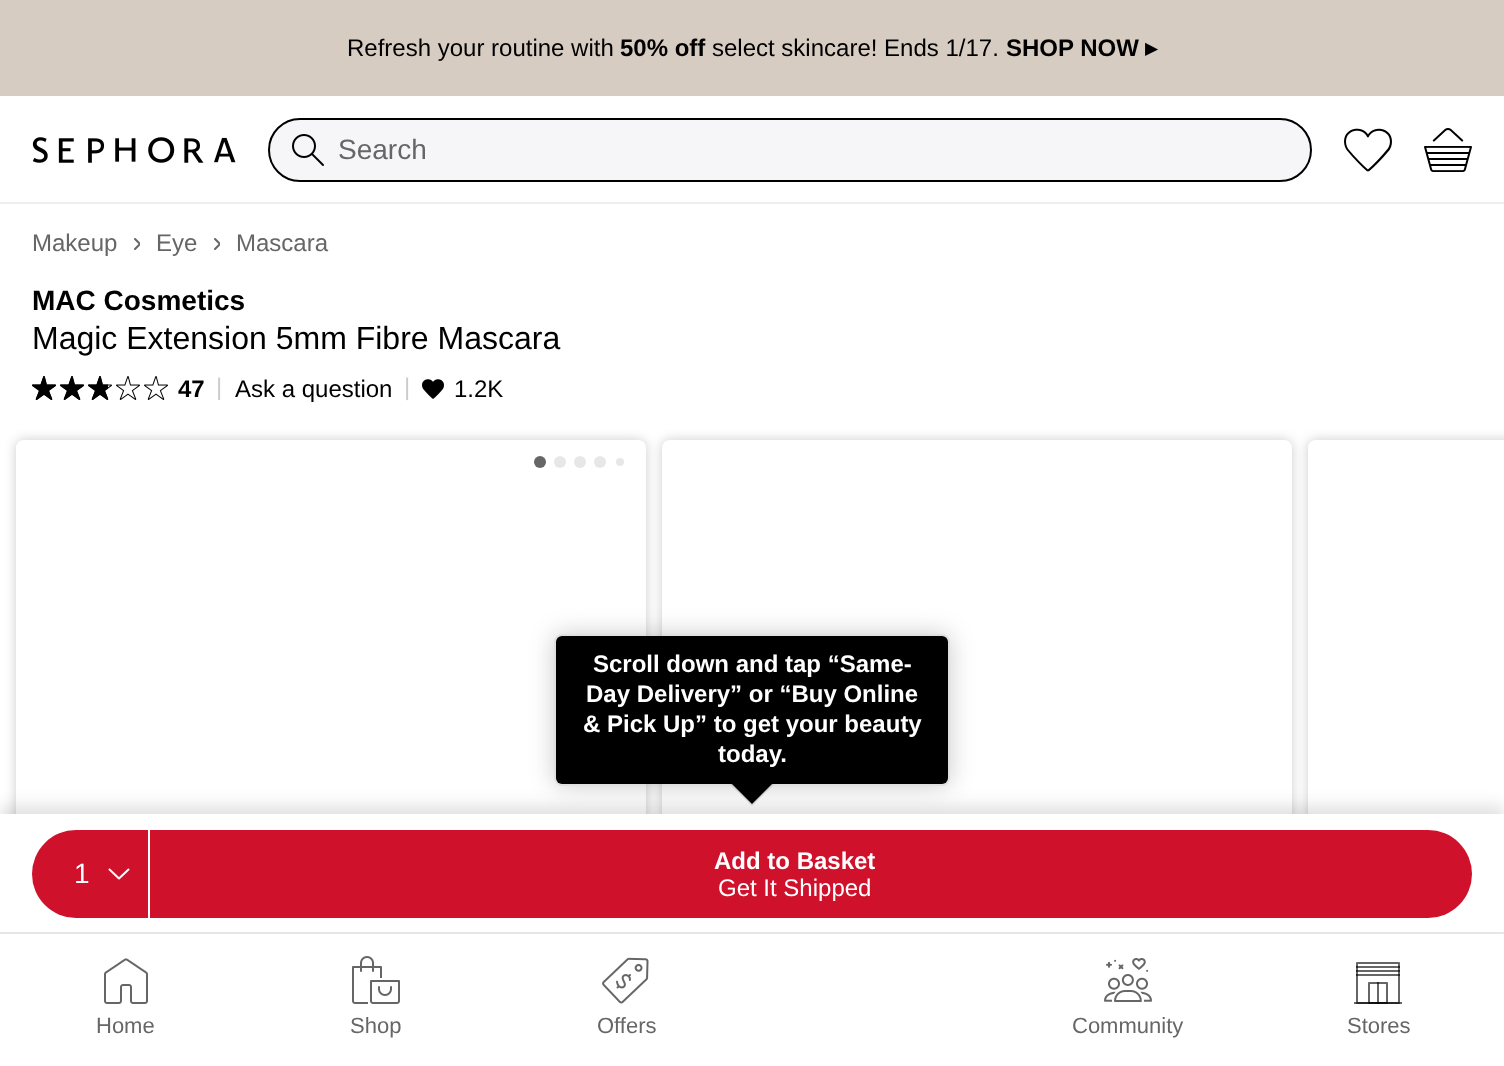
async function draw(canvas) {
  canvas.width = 1504;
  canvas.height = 1066;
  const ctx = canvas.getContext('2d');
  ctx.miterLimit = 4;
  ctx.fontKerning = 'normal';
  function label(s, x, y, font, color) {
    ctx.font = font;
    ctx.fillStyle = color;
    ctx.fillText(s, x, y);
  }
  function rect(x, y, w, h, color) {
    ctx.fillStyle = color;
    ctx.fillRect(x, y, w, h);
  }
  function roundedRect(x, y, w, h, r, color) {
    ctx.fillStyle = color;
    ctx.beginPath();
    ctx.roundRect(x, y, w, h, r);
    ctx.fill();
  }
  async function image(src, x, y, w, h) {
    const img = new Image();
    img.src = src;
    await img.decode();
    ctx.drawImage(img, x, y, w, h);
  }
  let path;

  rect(0, 0, 1504, 1066, '#fff');
  rect(0, 0, 1504, 96, '#d7ccc2');
  label('Refresh your routine with', 347, 56, '24px Liberation Sans', '#000');
  label('50% off', 620, 56, 'bold 24px Liberation Sans', '#000');
  label('select skincare! Ends 1/17.', 712, 56, '24px Liberation Sans', '#000');
  label('SHOP NOW', 1006, 56, 'bold 24px Liberation Sans', '#000');
  label('▸', 1145, 56, 'bold 24px DejaVu Sans', '#000');
  rect(0, 202, 1504, 2, '#eee');
  await image('assets/img1.png', 32, 137, 204, 26);
  ctx.fillStyle = '#f6f6f8';
  ctx.beginPath();
  ctx.roundRect(269, 119, 1042, 62, 31);
  ctx.fill();
  ctx.strokeStyle = '#000';
  ctx.lineWidth = 2;
  ctx.stroke();
  await image('assets/img2.png', 292, 134, 32, 32);
  label('Search', 338, 159, '28px Liberation Sans', '#666');
  await image('assets/img3.png', 1344, 128, 48, 44);
  await image('assets/img4.png', 1424, 128, 48, 44);
  ctx.save();
  path = new Path2D('M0 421H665V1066H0ZM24 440H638C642.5 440 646 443.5 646 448V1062C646 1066.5 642.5 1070 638 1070H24C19.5 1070 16 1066.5 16 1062V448C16 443.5 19.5 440 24 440Z');
  ctx.clip(path, 'evenodd');
  ctx.fillStyle = '#00000033';
  ctx.filter = 'blur(6px)';
  ctx.beginPath();
  ctx.roundRect(16, 440, 630, 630, 8);
  ctx.fill();
  ctx.filter = 'none';
  ctx.restore();
  ctx.save();
  path = new Path2D('M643 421H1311V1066H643ZM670 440H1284C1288.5 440 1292 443.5 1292 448V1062C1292 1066.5 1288.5 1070 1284 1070H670C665.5 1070 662 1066.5 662 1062V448C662 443.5 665.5 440 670 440Z');
  ctx.clip(path, 'evenodd');
  ctx.fillStyle = '#00000033';
  ctx.filter = 'blur(6px)';
  ctx.beginPath();
  ctx.roundRect(662, 440, 630, 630, 8);
  ctx.fill();
  ctx.filter = 'none';
  ctx.restore();
  ctx.save();
  path = new Path2D('M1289 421H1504V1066H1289ZM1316 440H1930C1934.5 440 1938 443.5 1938 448V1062C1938 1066.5 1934.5 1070 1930 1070H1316C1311.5 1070 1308 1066.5 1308 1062V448C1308 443.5 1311.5 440 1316 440Z');
  ctx.clip(path, 'evenodd');
  ctx.fillStyle = '#00000033';
  ctx.filter = 'blur(6px)';
  ctx.beginPath();
  ctx.roundRect(1308, 440, 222, 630, 8);
  ctx.fill();
  ctx.filter = 'none';
  ctx.restore();
  ctx.save();
  path = new Path2D('M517 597H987V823H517ZM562 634H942C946.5 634 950 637.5 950 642V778C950 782.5 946.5 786 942 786H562C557.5 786 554 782.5 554 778V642C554 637.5 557.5 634 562 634Z');
  ctx.clip(path, 'evenodd');
  ctx.fillStyle = '#00000033';
  ctx.filter = 'blur(12px)';
  ctx.beginPath();
  ctx.roundRect(554, 634, 396, 152, 8);
  ctx.fill();
  ctx.filter = 'none';
  ctx.restore();
  roundedRect(556, 636, 392, 148, 6, '#000');
  ctx.beginPath();
  ctx.roundRect(555, 635, 394, 150, 7);
  ctx.strokeStyle = '#0000001f';
  ctx.stroke();
  ctx.fillStyle = '#0000001f';
  path = new Path2D('M730 784H774L752 806Z');
  ctx.fill(path);
  ctx.fillStyle = '#000';
  path = new Path2D('M732 784H772L752 804Z');
  ctx.fill(path);
  ctx.fillStyle = '#0000001f';
  ctx.filter = 'blur(8px)';
  ctx.beginPath();
  ctx.rect(0, 806, 1504, 120);
  ctx.fill();
  ctx.filter = 'none';
  rect(0, 932, 1504, 2, '#e6e6e6');
  rect(0, 934, 1502, 132, '#fff');
  await image('assets/img5.png', 104, 958, 44, 46);
  label('Home', 96, 1033, '22px Liberation Sans', '#666');
  await image('assets/img6.png', 352, 956, 48, 48);
  label('Shop', 350, 1033, '22px Liberation Sans', '#666');
  await image('assets/img7.png', 602, 957, 47, 47);
  label('Offers', 597, 1033, '22px Liberation Sans', '#666');
  await image('assets/img8.png', 1104, 958, 48, 44);
  label('Community', 1072, 1033, '22px Liberation Sans', '#666');
  await image('assets/img9.png', 1354, 962, 48, 42);
  label('Stores', 1347, 1033, '22px Liberation Sans', '#666');
  label('Makeup', 32, 251, '24px Liberation Sans', '#666');
  ctx.save();
  ctx.beginPath();
  ctx.rect(134, 238, 6, 12);
  ctx.clip();
  path = new Path2D('M135 249L140 244L135 239');
  ctx.strokeStyle = '#666';
  ctx.lineCap = 'round';
  ctx.lineJoin = 'round';
  ctx.stroke(path);
  ctx.restore();
  label('Eye', 156, 251, '24px Liberation Sans', '#666');
  ctx.save();
  ctx.beginPath();
  ctx.rect(214, 238, 6, 12);
  ctx.clip();
  path = new Path2D('M215 249L220 244L215 239');
  ctx.strokeStyle = '#666';
  ctx.lineCap = 'round';
  ctx.lineJoin = 'round';
  ctx.stroke(path);
  ctx.restore();
  label('Mascara', 236, 251, '24px Liberation Sans', '#666');
  label('MAC Cosmetics', 32, 310, 'bold 28px Liberation Sans', '#000');
  label('Magic Extension 5mm Fibre Mascara', 32, 349, '32px Liberation Sans', '#000');
  await image('assets/img10.png', 32, 376, 24, 24);
  await image('assets/img10.png', 60, 376, 24, 24);
  await image('assets/img10.png', 88, 376, 24, 24);
  await image('assets/img10.png', 116, 376, 24, 24);
  await image('assets/img10.png', 144, 376, 24, 24);
  await image('assets/img11.png', 32, 376, 24, 24);
  await image('assets/img11.png', 60, 376, 24, 24);
  await image('assets/img12.png', 88, 376, 20, 24);
  label('47', 178, 397, 'bold 24px Liberation Sans', '#000');
  label('|', 216, 395, '24px Liberation Sans', '#ccc');
  label('Ask a question', 235, 397, '24px Liberation Sans', '#000');
  label('|', 404, 395, '24px Liberation Sans', '#ccc');
  await image('assets/img13.png', 422, 379, 22, 20);
  label('1.2K', 454, 397, '24px Liberation Sans', '#000');
  ctx.fillStyle = '#666';
  ctx.beginPath();
  ctx.arc(540, 462, 6, 0, 2 * Math.PI);
  ctx.fill();
  ctx.fillStyle = '#e7e7e7';
  ctx.beginPath();
  ctx.arc(560, 462, 6, 0, 2 * Math.PI);
  ctx.fill();
  ctx.beginPath();
  ctx.arc(580, 462, 6, 0, 2 * Math.PI);
  ctx.fill();
  ctx.beginPath();
  ctx.arc(600, 462, 6, 0, 2 * Math.PI);
  ctx.fill();
  ctx.beginPath();
  ctx.arc(620, 462, 4, 0, 2 * Math.PI);
  ctx.fill();
  label('Scroll down and tap “Same-', 593, 672, 'bold 24px Liberation Sans', '#fff');
  label('Day Delivery” or “Buy Online', 586, 702, 'bold 24px Liberation Sans', '#fff');
  label('& Pick Up” to get your beauty', 583, 732, 'bold 24px Liberation Sans', '#fff');
  label('today.', 718, 762, 'bold 24px Liberation Sans', '#fff');
  rect(0, 814, 1504, 118, '#fff');
  roundedRect(32, 830, 1440, 88, 44, '#cf112c');
  rect(148, 830, 2, 88, '#fff');
  label('1', 74, 883, '28px Liberation Sans', '#fff');
  path = new Path2D('M109.5 869.5L119 878.5L128.5 869.5');
  ctx.strokeStyle = '#fff';
  ctx.lineCap = 'round';
  ctx.lineJoin = 'round';
  ctx.stroke(path);
  label('Add to Basket', 714, 869, 'bold 24px Liberation Sans', '#fff');
  label('Get It Shipped', 718, 896, '24px Liberation Sans', '#fff');
}

draw(document.querySelector('canvas'));
